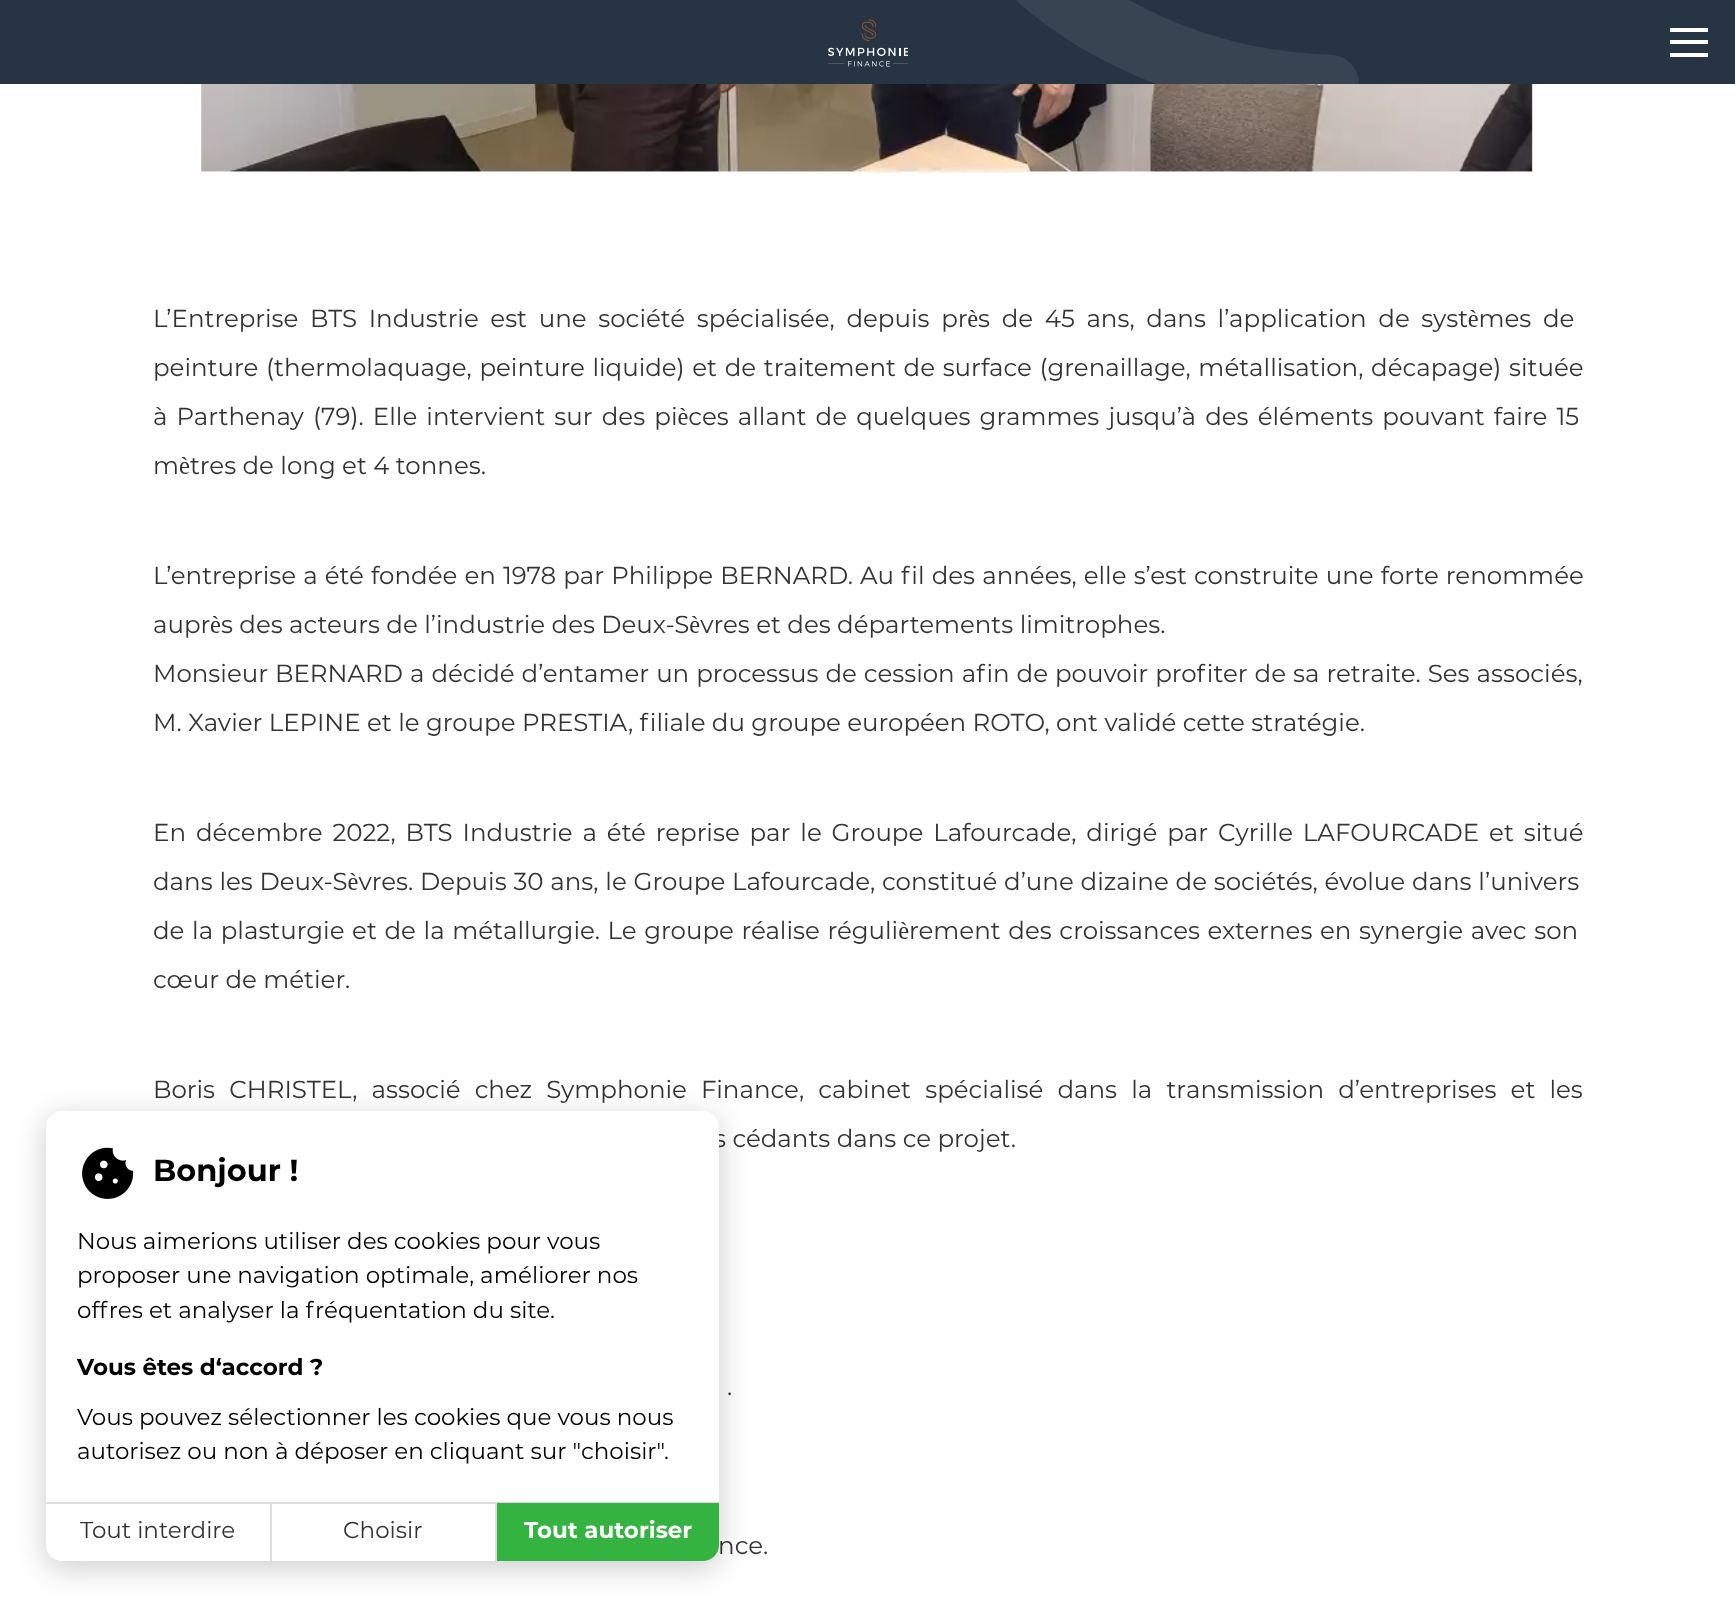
async function draw(canvas) {
  canvas.width = 1735;
  canvas.height = 1606;
  const ctx = canvas.getContext('2d');
  ctx.miterLimit = 4;
  ctx.fontKerning = 'normal';
  function label(s, x, y, font, color) {
    ctx.font = font;
    ctx.fillStyle = color;
    ctx.fillText(s, x, y);
  }
  function rect(x, y, w, h, color) {
    ctx.fillStyle = color;
    ctx.fillRect(x, y, w, h);
  }
  function roundedRect(x, y, w, h, r, color) {
    ctx.fillStyle = color;
    ctx.beginPath();
    ctx.roundRect(x, y, w, h, r);
    ctx.fill();
  }
  async function image(src, x, y, w, h) {
    const img = new Image();
    img.src = src;
    await img.decode();
    ctx.drawImage(img, x, y, w, h);
  }

  rect(0, 0, 1735, 1606, '#fff');
  rect(0, 0, 1735, 84, '#273443');
  await image('assets/img1.png', 1016, 0, 343, 84);
  await image('assets/img2.png', 828, 19, 80, 48);
  rect(1670, 53, 38, 4, '#fff');
  rect(1670, 28, 38, 4, '#fff');
  rect(1670, 40, 38, 4, '#fff');
  await image('assets/img3.png', 201, 84, 1332, 89);
  ctx.wordSpacing = '5.25px';
  label('L’Entreprise BTS Industrie est une société spécialisée, depuis près de 45 ans, dans l’application de systèmes de', 153, 327, '24.5px Montserrat', '#333');
  ctx.wordSpacing = '1.25px';
  label('peinture (thermolaquage, peinture liquide) et de traitement de surface (grenaillage, métallisation, décapage) située', 153, 376, '24.5px Montserrat', '#333');
  ctx.wordSpacing = '2.75px';
  label('à Parthenay (79). Elle intervient sur des pièces allant de quelques grammes jusqu’à des éléments pouvant faire 15', 153, 425, '24.5px Montserrat', '#333');
  ctx.wordSpacing = '0px';
  label('mètres de long et 4 tonnes.', 153, 474, '24.5px Montserrat', '#333');
  ctx.wordSpacing = '0.75px';
  label('L’entreprise a été fondée en 1978 par Philippe BERNARD. Au fil des années, elle s’est construite une forte renommée', 153, 584, '24.5px Montserrat', '#333');
  ctx.wordSpacing = '0px';
  label('auprès des acteurs de l’industrie des Deux-Sèvres et des départements limitrophes.', 153, 633, '24.5px Montserrat', '#333');
  ctx.wordSpacing = '0.6px';
  label('Monsieur BERNARD a décidé d’entamer un processus de cession afin de pouvoir profiter de sa retraite. Ses associés,', 153, 682, '24.5px Montserrat', '#333');
  ctx.wordSpacing = '0px';
  label('M. Xavier LEPINE et le groupe PRESTIA, filiale du groupe européen ROTO, ont validé cette stratégie.', 153, 731, '24.5px Montserrat', '#333');
  ctx.wordSpacing = '3.5px';
  label('En décembre 2022, BTS Industrie a été reprise par le Groupe Lafourcade, dirigé par Cyrille LAFOURCADE et situé', 153, 841, '24.5px Montserrat', '#333');
  ctx.wordSpacing = '0.4px';
  label('dans les Deux-Sèvres. Depuis 30 ans, le Groupe Lafourcade, constitué d’une dizaine de sociétés, évolue dans l’univers', 153, 890, '24.5px Montserrat', '#333');
  ctx.wordSpacing = '1.25px';
  label('de la plasturgie et de la métallurgie. Le groupe réalise régulièrement des croissances externes en synergie avec son', 153, 939, '24.5px Montserrat', '#333');
  ctx.wordSpacing = '0px';
  label('cœur de métier.', 153, 988, '24.5px Montserrat', '#333');
  ctx.wordSpacing = '7.75px';
  label('Boris CHRISTEL, associé chez Symphonie Finance, cabinet spécialisé dans la transmission d’entreprises et les', 153, 1098, '24.5px Montserrat', '#333');
  ctx.wordSpacing = '0px';
  label('s cédants dans ce projet.', 714, 1147, '24.5px Montserrat', '#333');
  label('.', 727, 1395, '24.5px Montserrat', '#333');
  label('nce.', 718, 1554, '24.5px Montserrat', '#333');
  ctx.fillStyle = '#00000033';
  ctx.filter = 'blur(15.5px)';
  ctx.beginPath();
  ctx.roundRect(46, 1118, 673, 450, 16);
  ctx.fill();
  ctx.filter = 'none';
  roundedRect(46, 1111, 673, 450, 16, '#fff');
  await image('assets/img4.png', 82, 1147, 52, 52);
  label('Bonjour !', 153, 1181, 'bold 30.5px Montserrat', '#000');
  label('Nous aimerions utiliser des cookies pour vous', 77, 1249, '23px Montserrat', '#000');
  label('proposer une navigation optimale, améliorer nos', 77, 1283, '23px Montserrat', '#000');
  label('offres et analyser la fréquentation du site.', 77, 1318, '23px Montserrat', '#000');
  label('Vous êtes d‘accord ?', 77, 1375, 'bold 23px Montserrat', '#000');
  label('Vous pouvez sélectionner les cookies que vous nous', 77, 1425, '23px Montserrat', '#000');
  label('autorisez ou non à déposer en cliquant sur "choisir".', 77, 1459, '23px Montserrat', '#000');
  rect(46, 1502, 673, 2, '#ddd');
  label('Tout interdire', 80, 1538, '23px Montserrat', '#333');
  rect(270, 1503, 2, 58, '#ddd');
  label('Choisir', 343, 1538, '23px Montserrat', '#333');
  ctx.fillStyle = '#35b340';
  ctx.beginPath();
  ctx.roundRect(495, 1503, 224, 58, [0, 0, 16, 0]);
  ctx.fill();
  rect(495, 1503, 2, 58, '#ddd');
  label('Tout autoriser', 524, 1538, 'bold 23px Montserrat', '#fff');
}

draw(document.querySelector('canvas'));
